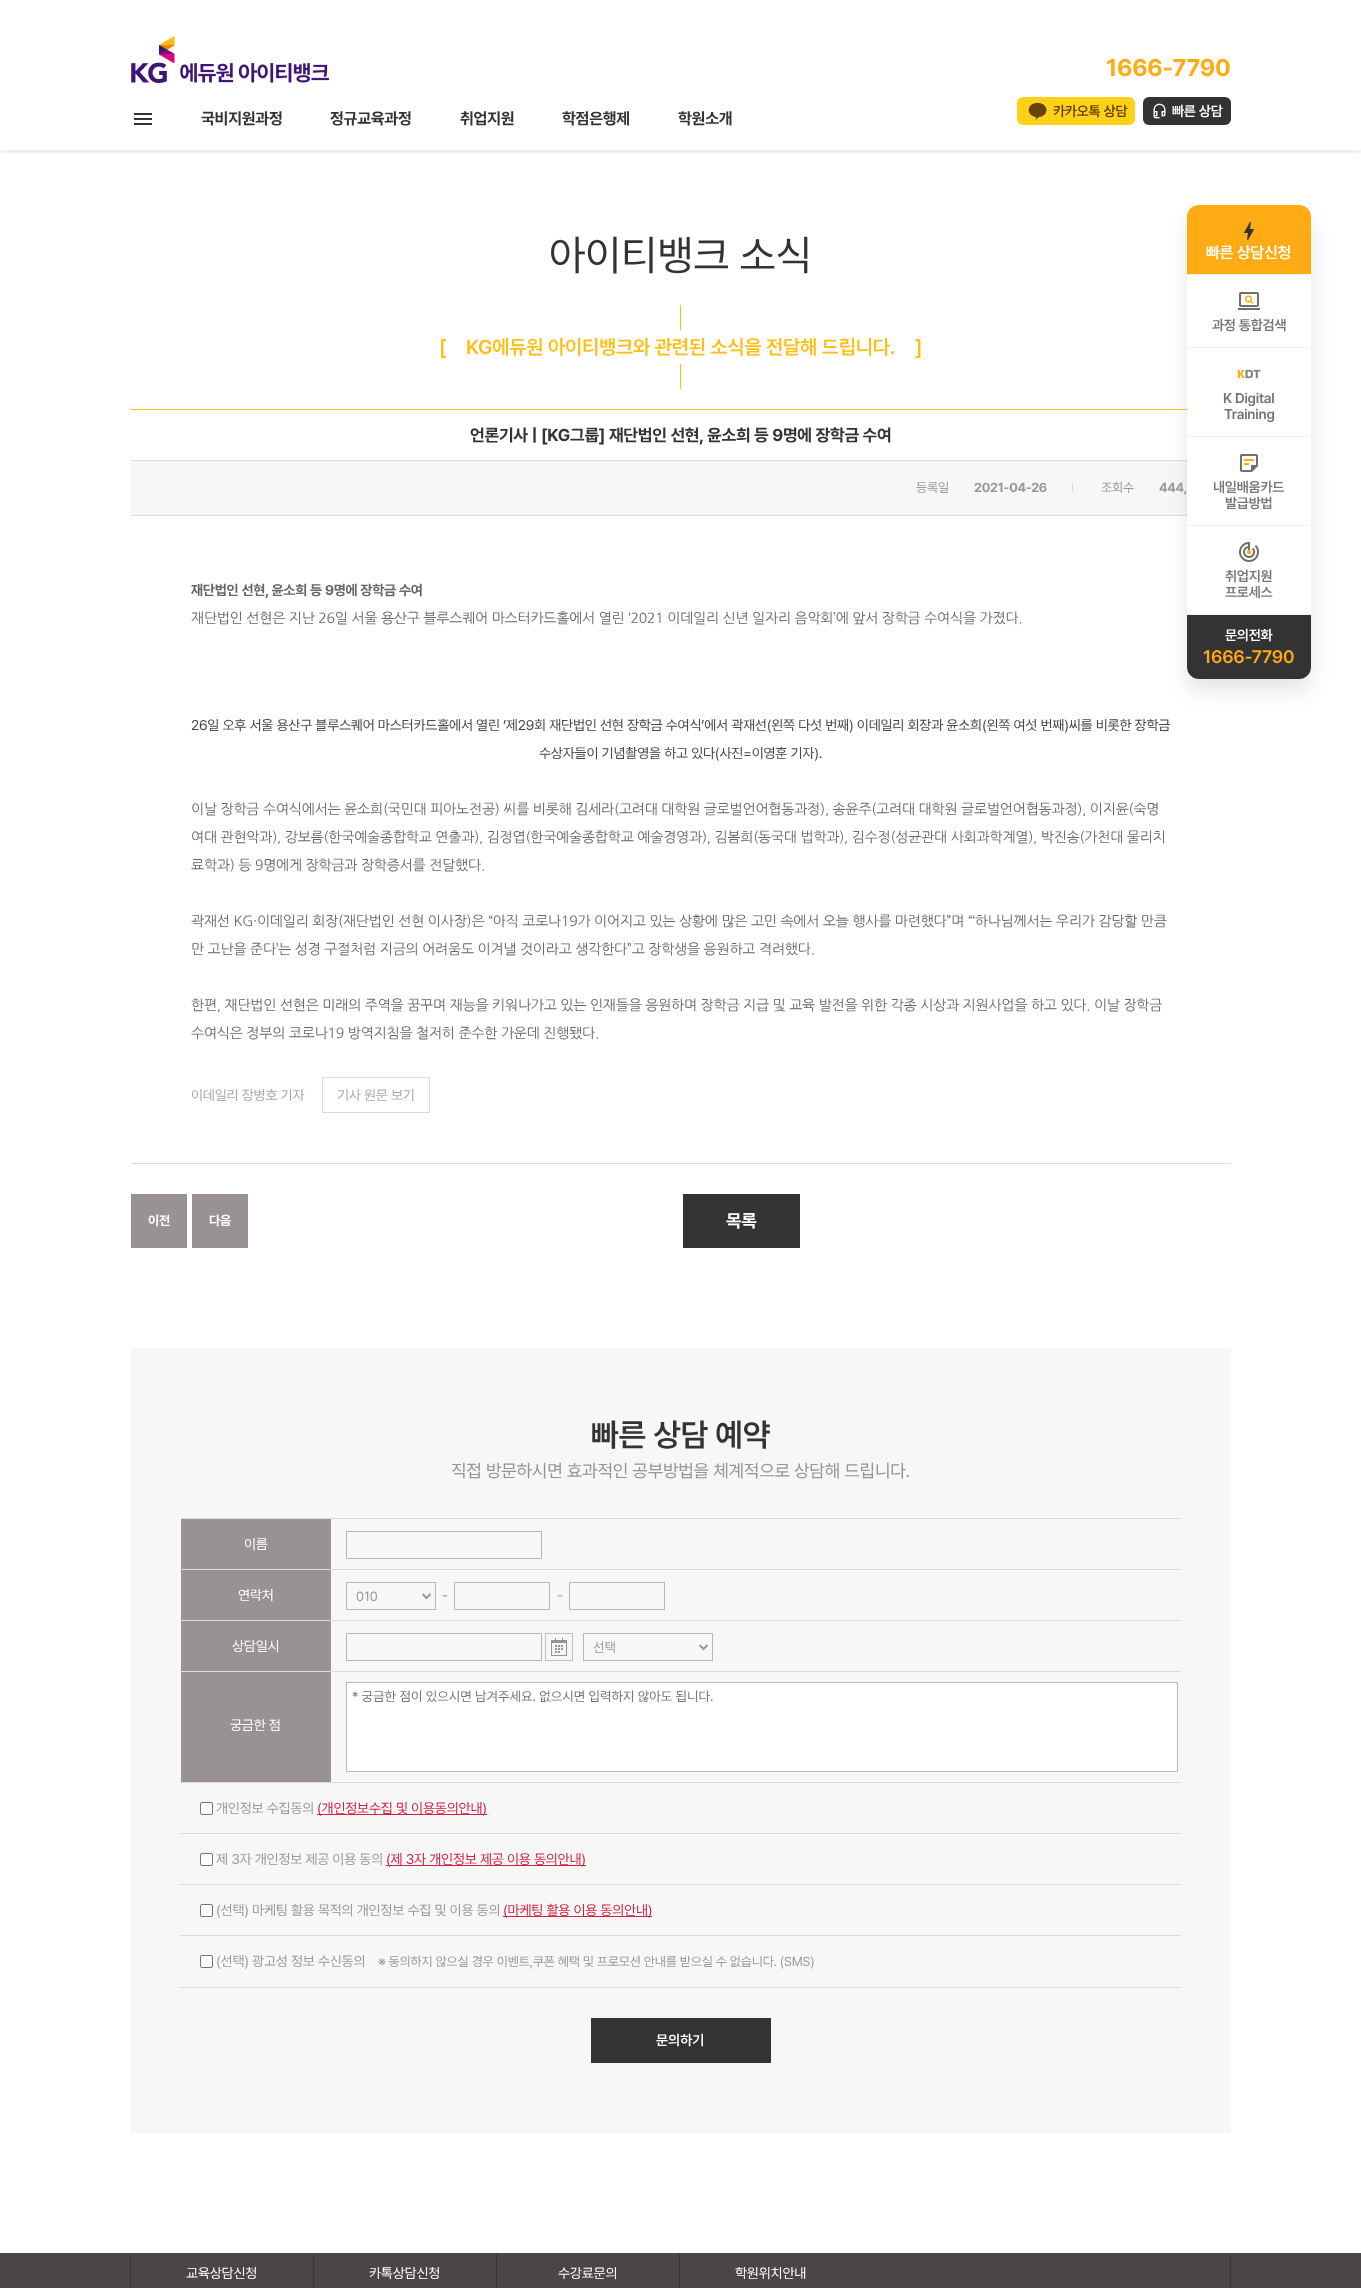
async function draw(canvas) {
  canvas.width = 1361;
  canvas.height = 2288;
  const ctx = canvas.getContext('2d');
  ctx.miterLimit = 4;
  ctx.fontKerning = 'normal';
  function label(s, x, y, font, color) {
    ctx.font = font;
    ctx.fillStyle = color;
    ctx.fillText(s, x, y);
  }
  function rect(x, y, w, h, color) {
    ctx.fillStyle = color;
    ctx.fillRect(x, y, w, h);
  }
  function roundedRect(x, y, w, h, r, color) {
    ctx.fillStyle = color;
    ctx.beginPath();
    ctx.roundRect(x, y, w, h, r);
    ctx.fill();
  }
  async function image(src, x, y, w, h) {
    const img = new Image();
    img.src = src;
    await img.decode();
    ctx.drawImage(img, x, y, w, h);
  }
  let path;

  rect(0, 0, 1361, 2288, '#fff');
  ctx.save();
  ctx.beginPath();
  ctx.rect(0, 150, 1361, 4);
  ctx.clip();
  ctx.fillStyle = '#0000001a';
  ctx.filter = 'blur(2.5px)';
  ctx.beginPath();
  ctx.rect(0, 2, 1361, 150);
  ctx.fill();
  ctx.filter = 'none';
  ctx.restore();
  await image('assets/img1.png', 134, 113, 18, 12);
  ctx.letterSpacing = '-0.24px';
  label('국비지원과정', 201, 124, 'bold 16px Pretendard', '#333');
  label('정규교육과정', 330, 124, 'bold 16px Pretendard', '#333');
  label('취업지원', 460, 124, 'bold 16px Pretendard', '#333');
  label('학점은행제', 562, 124, 'bold 16px Pretendard', '#333');
  label('학원소개', 678, 124, 'bold 16px Pretendard', '#333');
  await image('assets/img2.png', 131, 36, 199, 47);
  label('1666-7790', 1106, 76, 'bold 24px Pretendard', '#feab14');
  roundedRect(1017, 97, 118, 28, 6, '#ffd117');
  await image('assets/img3.png', 1028, 102, 19, 18);
  label('카카오톡 상담', 1053, 116, '600 14px Pretendard', '#67420d');
  roundedRect(1143, 97, 88, 28, 6, '#333');
  await image('assets/img4.png', 1153, 103, 13, 16);
  label('빠른 상담', 1172, 116, '600 14px Pretendard', '#fff');
  label('아이티뱅크 소식', 549, 270, '42px Pretendard', '#333');
  rect(131, 409, 1056, 1, '#febf14');
  rect(131, 461, 1056, 54, '#f7f7f7');
  rect(131, 460, 1056, 1, '#dcdcdc');
  rect(131, 515, 1056, 1, '#dcdcdc');
  ctx.fillStyle = '#0000001a';
  ctx.filter = 'blur(10px)';
  ctx.beginPath();
  ctx.roundRect(1187, 217, 124, 474, 12);
  ctx.fill();
  ctx.filter = 'none';
  ctx.fillStyle = '#feab14';
  ctx.beginPath();
  ctx.roundRect(1187, 205, 124, 69, [12, 12, 0, 0]);
  ctx.fill();
  await image('assets/img5.png', 1244, 222, 10, 18);
  label('빠른 상담신청', 1206, 258, '600 16px Pretendard', '#fff');
  rect(1187, 275, 124, 339, '#fff');
  rect(1187, 274, 124, 1, '#f2f2f2');
  rect(1187, 347, 124, 1, '#f2f2f2');
  await image('assets/img6.png', 1238, 292, 22, 18);
  label('과정 통합검색', 1212, 330, '600 14px Pretendard', '#757575');
  rect(1187, 436, 124, 1, '#f2f2f2');
  await image('assets/img7.png', 1237, 369, 24, 10);
  label('K Digital', 1223, 403, '600 14px Pretendard', '#757575');
  label('Training', 1224, 419, '600 14px Pretendard', '#757575');
  rect(1187, 525, 124, 1, '#f2f2f2');
  await image('assets/img8.png', 1240, 454, 18, 18);
  label('내일배움카드', 1213, 492, '600 14px Pretendard', '#757575');
  label('발급방법', 1225, 508, '600 14px Pretendard', '#757575');
  rect(1187, 614, 124, 1, '#f2f2f2');
  await image('assets/img9.png', 1239, 542, 20, 20);
  label('취업지원', 1225, 581, '600 14px Pretendard', '#757575');
  label('프로세스', 1225, 597, '600 14px Pretendard', '#757575');
  ctx.fillStyle = '#333';
  ctx.beginPath();
  ctx.roundRect(1187, 615, 124, 64, [0, 0, 12, 12]);
  ctx.fill();
  label('문의전화', 1225, 640, '600 14px Pretendard', '#fff');
  label('1666-7790', 1203, 663, '600 18px Pretendard', '#feab14');
  rect(680, 305, 1, 25, '#febf14');
  label('[', 439, 354, '600 20px Pretendard', '#febf14');
  label('KG에듀원 아이티뱅크와 관련된 소식을 전달해 드립니다.', 466, 354, '600 20px Pretendard', '#febf14');
  label(']', 915, 354, '600 20px Pretendard', '#febf14');
  rect(680, 364, 1, 25, '#febf14');
  label('언론기사 | [KG그룹] 재단법인 선현, 윤소희 등 9명에 장학금 수여', 470, 441, 'bold 17px Pretendard', '#333');
  label('등록일', 916, 492, '13px Pretendard', '#999');
  label('2021-04-26', 974, 492, 'bold 13px Pretendard', '#999');
  rect(1072, 483, 1, 9, '#dcdcdc');
  label('조회수', 1101, 492, '13px Pretendard', '#999');
  label('444,', 1159, 492, 'bold 13px Pretendard', '#999');
  label('재단법인 선현, 윤소희 등 9명에 장학금 수여', 191, 595, 'bold 14px Pretendard', '#666');
  label('재단법인 선현은 지난 26일 서울 용산구 블루스퀘어 마스터카드홀에서 열린 ‘2021 이데일리 신년 일자리 음악회’에 앞서 장학금 수여식을 가졌다.', 191, 623, '14px NanumGothic', '#666');
  label('26일 오후 서울 용산구 블루스퀘어 마스터카드홀에서 열린 ‘제29회 재단법인 선현 장학금 수여식’에서 곽재선(왼쪽 다섯 번째) 이데일리 회장과 윤소희(왼쪽 여섯 번째)씨를 비롯한 장학금', 191, 730, '14px Pretendard', '#464646');
  label('수상자들이 기념촬영을 하고 있다(사진=이영훈 기자).', 539, 758, '14px Pretendard', '#464646');
  label('이날 장학금 수여식에서는 윤소희(국민대 피아노전공) 씨를 비롯해 김세라(고려대 대학원 글로벌언어협동과정), 송윤주(고려대 대학원 글로벌언어협동과정), 이지윤(숙명', 191, 814, '14px NanumGothic', '#666');
  label('여대 관현악과), 강보름(한국예술종합학교 연출과), 김정엽(한국예술종합학교 예술경영과), 김봄희(동국대 법학과), 김수정(성균관대 사회과학계열), 박진송(가천대 물리치', 191, 842, '14px NanumGothic', '#666');
  label('료학과) 등 9명에게 장학금과 장학증서를 전달했다.', 191, 870, '14px NanumGothic', '#666');
  label('곽재선 KG·이데일리 회장(재단법인 선현 이사장)은 “아직 코로나19가 이어지고 있는 상황에 많은 고민 속에서 오늘 행사를 마련했다”며 “‘하나님께서는 우리가 감당할 만큼', 191, 926, '14px NanumGothic', '#666');
  label('만 고난을 준다’는 성경 구절처럼 지금의 어려움도 이겨낼 것이라고 생각한다”고 장학생을 응원하고 격려했다.', 191, 954, '14px NanumGothic', '#666');
  label('한편, 재단법인 선현은 미래의 주역을 꿈꾸며 재능을 키워나가고 있는 인재들을 응원하며 장학금 지급 및 교육 발전을 위한 각종 시상과 지원사업을 하고 있다. 이날 장학금', 191, 1010, '14px NanumGothic', '#666');
  label('수여식은 정부의 코로나19 방역지침을 철저히 준수한 가운데 진행됐다.', 191, 1038, '14px NanumGothic', '#666');
  rect(131, 1163, 1100, 1, '#ddd');
  label('이데일리 장병호 기자', 191, 1100, '14px Pretendard', '#aaa');
  ctx.strokeStyle = '#dcdcdc';
  ctx.strokeRect(322.5, 1077.5, 107, 35);
  label('기사 원문 보기', 337, 1100, '14px Pretendard', '#aaa');
  rect(131, 1194, 56, 54, '#999292');
  label('이전', 148, 1225, 'bold 13px Pretendard', '#fff');
  rect(192, 1194, 56, 54, '#999292');
  label('다음', 209, 1225, 'bold 13px Pretendard', '#fff');
  rect(683, 1194, 117, 54, '#333');
  label('목록', 726, 1227, 'bold 18px Pretendard', '#fff');
  rect(131, 1348, 1100, 785, '#f7f7f7');
  label('빠른 상담 예약', 591, 1446, '600 32px Pretendard', '#333');
  label('직접 방문하시면 효과적인 공부방법을 체계적으로 상담해 드립니다.', 451, 1477, '18px Pretendard', '#999292');
  rect(181, 1518, 1000, 1, '#dcdcdc');
  rect(180, 1569, 1001, 1, '#dcdcdc');
  rect(181, 1519, 150, 50, '#999292');
  label('이름', 244, 1549, '14px Pretendard', '#fff');
  ctx.strokeStyle = '#b8b8b8';
  ctx.strokeRect(346.5, 1531.5, 195, 27);
  rect(180, 1620, 1001, 1, '#dcdcdc');
  rect(181, 1570, 150, 50, '#999292');
  label('연락처', 238, 1600, '14px Pretendard', '#fff');
  ctx.strokeRect(346.5, 1582.5, 89, 27);
  path = new Path2D('M422.5 1594L426.5 1598L430.5 1594');
  ctx.strokeStyle = '#999';
  ctx.lineWidth = 2;
  ctx.stroke(path);
  ctx.letterSpacing = '0px';
  label('010', 356, 1601, '13.3px Pretendard', '#999');
  ctx.letterSpacing = '-0.24px';
  label('-', 442, 1600, '14px Pretendard', '#999');
  ctx.strokeStyle = '#b8b8b8';
  ctx.lineWidth = 1;
  ctx.strokeRect(454.5, 1582.5, 95, 27);
  label('-', 557, 1600, '14px Pretendard', '#999');
  ctx.strokeRect(569.5, 1582.5, 95, 27);
  rect(180, 1671, 1001, 1, '#dcdcdc');
  rect(181, 1621, 150, 50, '#999292');
  label('상담일시', 232, 1651, '14px Pretendard', '#fff');
  ctx.strokeRect(346.5, 1633.5, 195, 27);
  await image('assets/img10.png', 545, 1633, 28, 28);
  ctx.strokeRect(583.5, 1633.5, 129, 27);
  path = new Path2D('M699.5 1645L703.5 1649L707.5 1645');
  ctx.strokeStyle = '#999';
  ctx.lineWidth = 2;
  ctx.stroke(path);
  ctx.letterSpacing = '0px';
  label('선택', 593, 1652, '13.3px Pretendard', '#999');
  rect(180, 1782, 1001, 1, '#dcdcdc');
  ctx.fillStyle = '#fff';
  ctx.beginPath();
  ctx.rect(346.5, 1682.5, 831, 89);
  ctx.fill();
  ctx.strokeStyle = '#b8b8b8';
  ctx.lineWidth = 1;
  ctx.stroke();
  label('* 궁금한 점이 있으시면 남겨주세요. 없으시면 입력하지 않아도 됩니다.', 352, 1701, '13.3px Pretendard', '#757575');
  rect(181, 1672, 150, 110, '#999292');
  ctx.letterSpacing = '-0.24px';
  label('궁금한 점', 230, 1730, '14px Pretendard', '#fff');
  rect(180, 1833, 1001, 1, '#dcdcdc');
  ctx.fillStyle = '#fff';
  ctx.beginPath();
  ctx.roundRect(200.5, 1802.5, 12, 12, 1.5);
  ctx.fill();
  ctx.strokeStyle = '#767676';
  ctx.stroke();
  label('개인정보 수집동의', 216, 1813, '14px Pretendard', '#999');
  rect(317, 1814, 170, 1, '#d12243');
  label('(개인정보수집 및 이용동의안내)', 317, 1813, '14px Pretendard', '#d12243');
  rect(180, 1884, 1001, 1, '#dcdcdc');
  ctx.fillStyle = '#fff';
  ctx.beginPath();
  ctx.roundRect(200.5, 1853.5, 12, 12, 1.5);
  ctx.fill();
  ctx.stroke();
  label('제 3자 개인정보 제공 이용 동의', 216, 1864, '14px Pretendard', '#999');
  rect(386, 1865, 200, 1, '#d12243');
  label('(제 3자 개인정보 제공 이용 동의안내)', 386, 1864, '14px Pretendard', '#d12243');
  rect(180, 1935, 1001, 1, '#dcdcdc');
  ctx.fillStyle = '#fff';
  ctx.beginPath();
  ctx.roundRect(200.5, 1904.5, 12, 12, 1.5);
  ctx.fill();
  ctx.stroke();
  label('(선택) 마케팅 활용 목적의 개인정보 수집 및 이용 동의', 216, 1915, '14px Pretendard', '#999');
  rect(503, 1916, 149, 1, '#d12243');
  label('(마케팅 활용 이용 동의안내)', 503, 1915, '14px Pretendard', '#d12243');
  rect(180, 1987, 1001, 1, '#dcdcdc');
  ctx.fillStyle = '#fff';
  ctx.beginPath();
  ctx.roundRect(200.5, 1955.5, 12, 12, 1.5);
  ctx.fill();
  ctx.stroke();
  label('(선택) 광고성 정보 수신동의', 216, 1966, '14px Pretendard', '#999');
  label('※ 동의하지 않으실 경우 이벤트,쿠폰 혜택 및 프로모션 안내를 받으실 수 없습니다. (SMS)', 378, 1966, '13px Pretendard', '#999');
  rect(591, 2018, 180, 45, '#333');
  ctx.letterSpacing = '0px';
  label('문의하기', 656, 2045, '600 14px Pretendard', '#fff');
  rect(0, 2253, 1361, 35, '#4b4545');
  rect(1230, 2253, 1, 35, '#3c3737');
  rect(130, 2253, 1, 35, '#3c3737');
  ctx.letterSpacing = '-0.24px';
  label('교육상담신청', 186, 2278, '14px Pretendard', '#fff');
  rect(313, 2253, 1, 35, '#3c3737');
  label('카톡상담신청', 369, 2278, '14px Pretendard', '#fff');
  rect(496, 2253, 1, 35, '#3c3737');
  label('수강료문의', 558, 2278, '14px Pretendard', '#fff');
  rect(679, 2253, 1, 35, '#3c3737');
  label('학원위치안내', 735, 2278, '14px Pretendard', '#fff');
}

draw(document.querySelector('canvas'));
